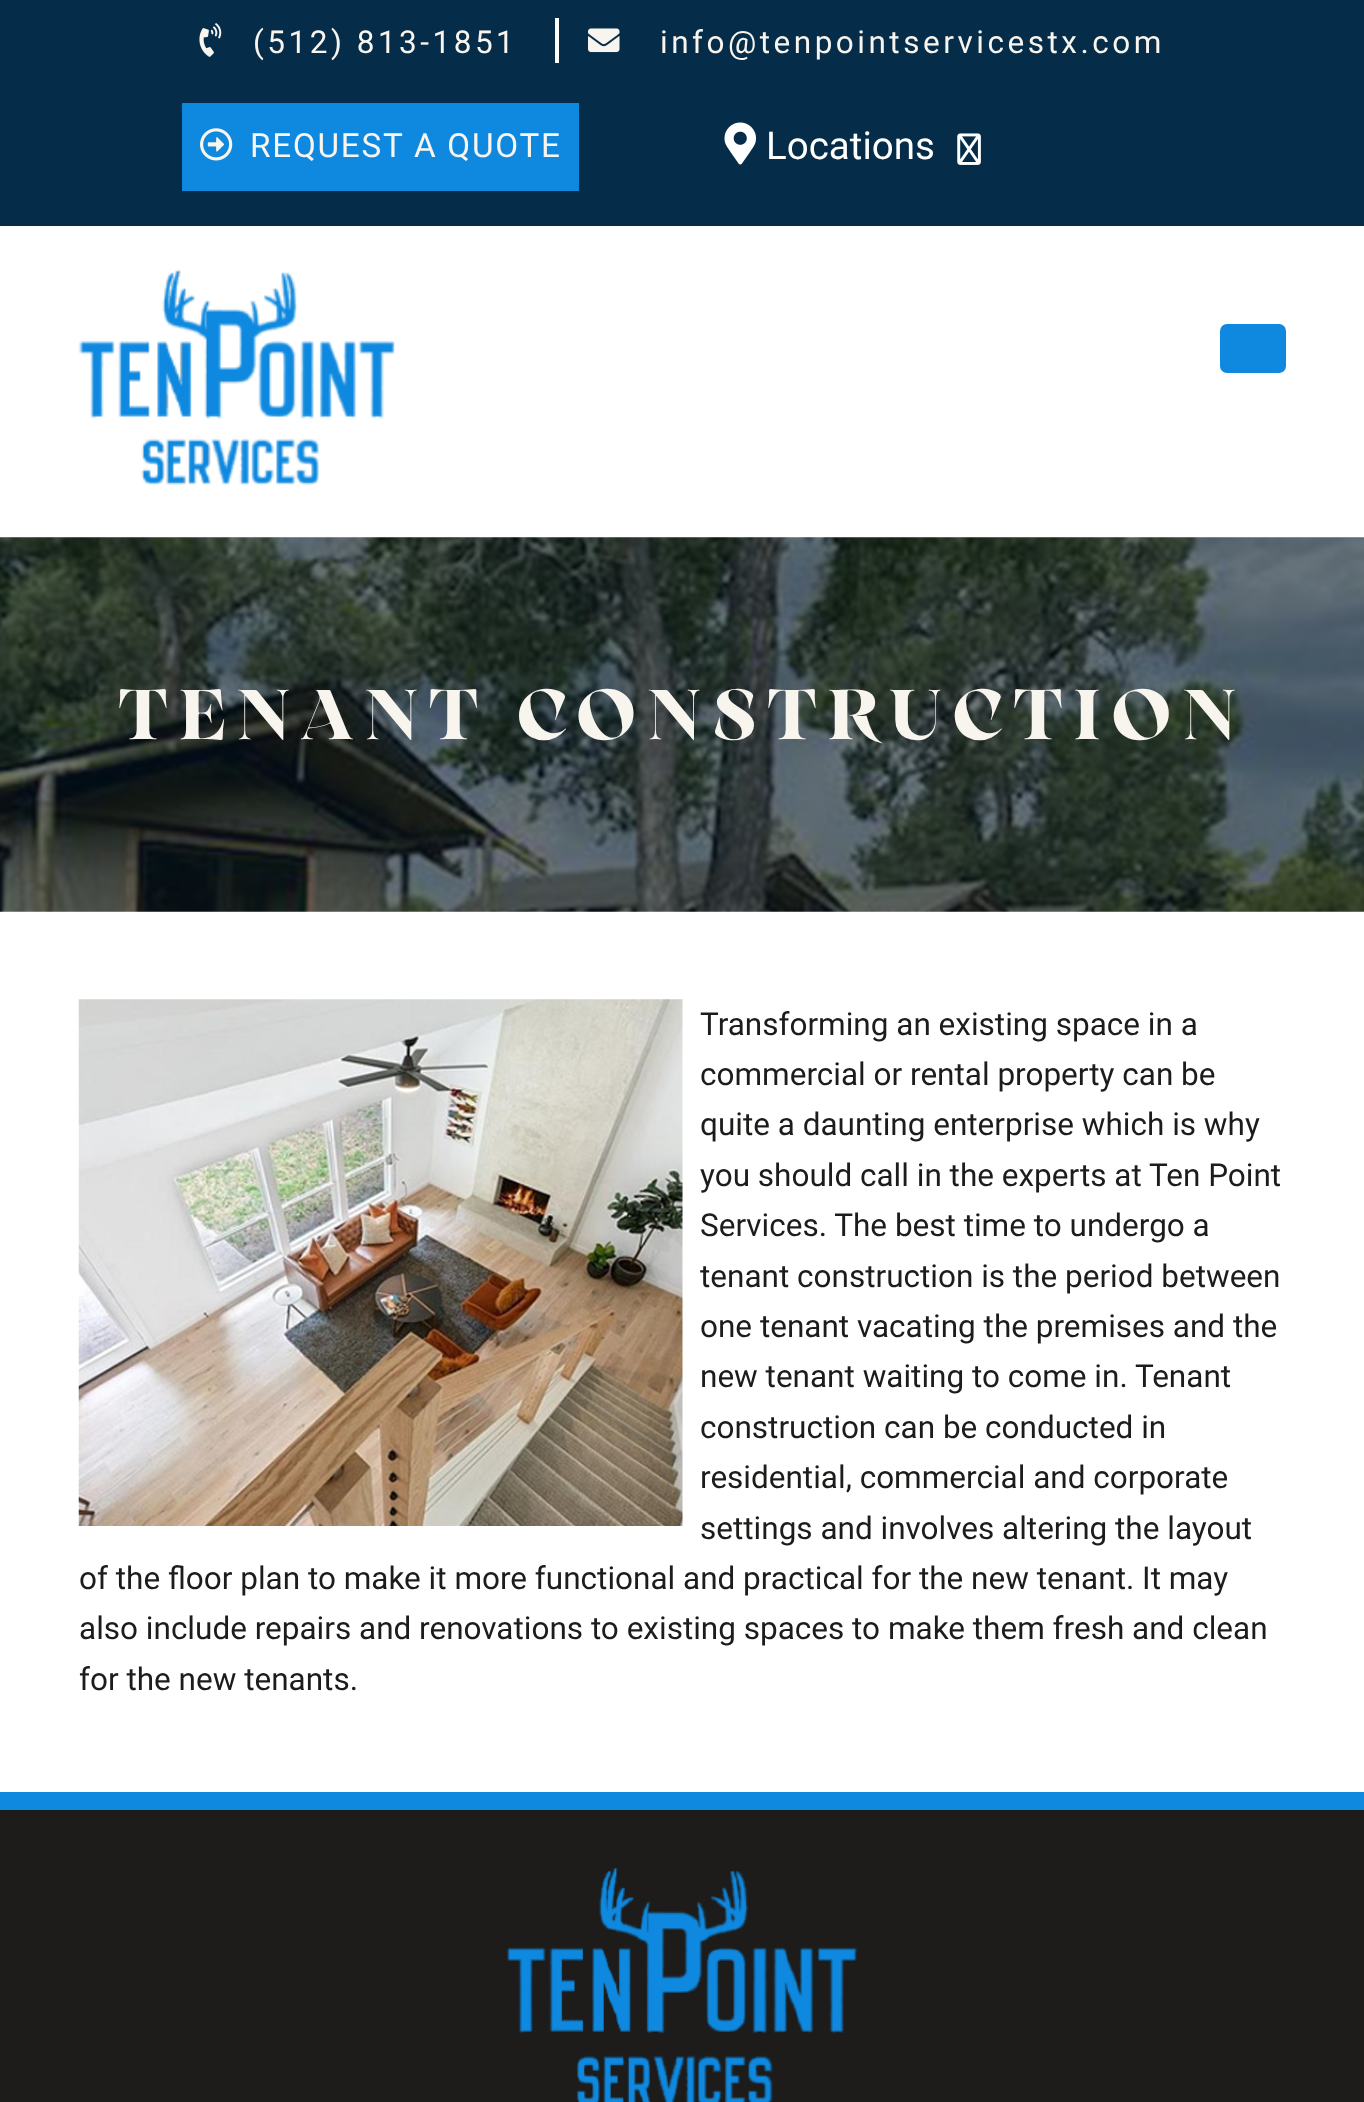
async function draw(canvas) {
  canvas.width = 1364;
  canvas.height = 2102;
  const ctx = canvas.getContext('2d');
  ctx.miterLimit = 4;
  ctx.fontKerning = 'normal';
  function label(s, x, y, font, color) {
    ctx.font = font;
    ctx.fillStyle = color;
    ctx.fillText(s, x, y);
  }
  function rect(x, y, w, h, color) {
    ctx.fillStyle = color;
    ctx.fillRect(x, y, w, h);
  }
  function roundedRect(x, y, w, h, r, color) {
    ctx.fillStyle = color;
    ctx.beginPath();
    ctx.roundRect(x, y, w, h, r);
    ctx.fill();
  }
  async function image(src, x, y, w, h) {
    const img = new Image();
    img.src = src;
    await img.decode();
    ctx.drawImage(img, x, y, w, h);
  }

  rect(0, 0, 1364, 2102, '#fff');
  rect(0, 0, 1364, 226, '#052c48');
  await image('assets/img1.png', 199, 23, 23, 34);
  ctx.letterSpacing = '3.5px';
  label('(512) 813-1851', 253, 53, '31.5px Roboto', '#f8f4ee');
  rect(555, 18, 4, 45, '#fff');
  await image('assets/img2.png', 588, 28, 32, 25);
  label('info@tenpointservicestx.com', 660, 53, '31.5px Roboto', '#f8f4ee');
  rect(182, 103, 397, 88, '#0f89df');
  await image('assets/img3.png', 200, 128, 33, 33);
  ctx.letterSpacing = '1.75px';
  label('REQUEST A QUOTE', 250, 157, '33.25px Roboto', '#f8f4ee');
  await image('assets/img4.png', 724, 122, 32, 43);
  ctx.letterSpacing = '0px';
  label('Locations', 766, 159, '38.5px Roboto', '#fff');
  await image('assets/img5.png', 957, 133, 24, 32);
  await image('assets/img6.png', 78, 269, 318, 216);
  roundedRect(1220, 324, 66, 49, 7, '#0f89df');
  await image('assets/img7.png', 0, 537, 1364, 375);
  ctx.letterSpacing = '10.5px';
  label('TENANT CONSTRUCTION', 118, 739, 'bold 70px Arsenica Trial', '#f8f4ee');
  await image('assets/img8.png', 78, 999, 605, 527);
  ctx.letterSpacing = '0px';
  label('Transforming an existing space in a', 700, 1035, '31.5px Roboto', '#1d1c1b');
  label('commercial or rental property can be', 700, 1085, '31.5px Roboto', '#1d1c1b');
  label('quite a daunting enterprise which is why', 700, 1135, '31.5px Roboto', '#1d1c1b');
  label('you should call in the experts at Ten Point', 700, 1186, '31.5px Roboto', '#1d1c1b');
  label('Services. The best time to undergo a', 700, 1236, '31.5px Roboto', '#1d1c1b');
  label('tenant construction is the period between', 700, 1287, '31.5px Roboto', '#1d1c1b');
  label('one tenant vacating the premises and the', 700, 1337, '31.5px Roboto', '#1d1c1b');
  label('new tenant waiting to come in. Tenant', 700, 1387, '31.5px Roboto', '#1d1c1b');
  label('construction can be conducted in', 700, 1438, '31.5px Roboto', '#1d1c1b');
  label('residential, commercial and corporate', 700, 1488, '31.5px Roboto', '#1d1c1b');
  label('settings and involves altering the layout', 700, 1539, '31.5px Roboto', '#1d1c1b');
  label('of the floor plan to make it more functional and practical for the new tenant. It may', 79, 1589, '31.5px Roboto', '#1d1c1b');
  label('also include repairs and renovations to existing spaces to make them fresh and clean', 79, 1639, '31.5px Roboto', '#1d1c1b');
  label('for the new tenants.', 79, 1690, '31.5px Roboto', '#1d1c1b');
  rect(0, 1810, 1364, 292, '#1d1c1b');
  rect(0, 1792, 1364, 18, '#0f89df');
  await image('assets/img9.png', 507, 1867, 351, 235);
}

draw(document.querySelector('canvas'));
